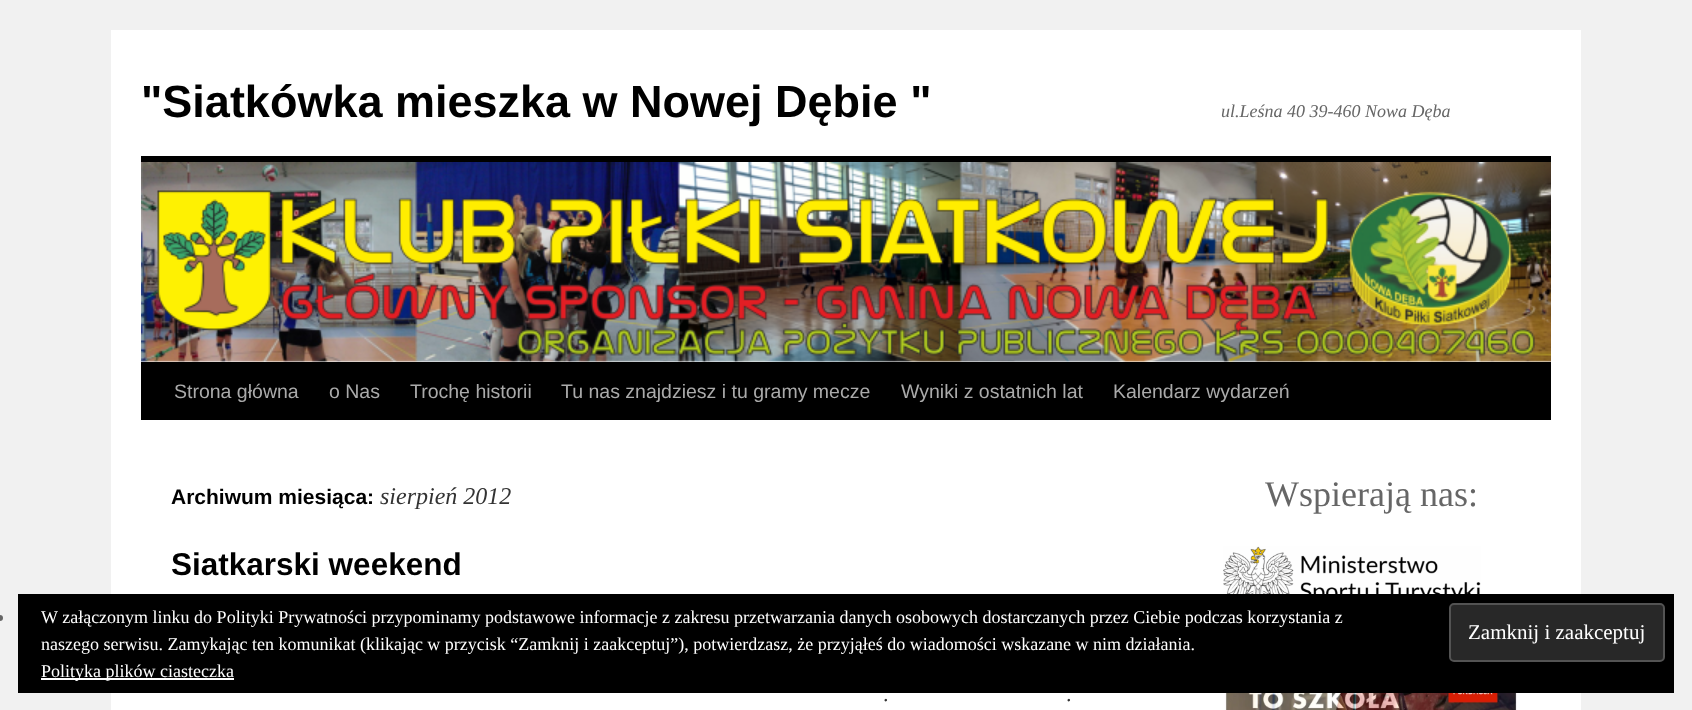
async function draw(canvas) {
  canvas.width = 1692;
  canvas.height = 710;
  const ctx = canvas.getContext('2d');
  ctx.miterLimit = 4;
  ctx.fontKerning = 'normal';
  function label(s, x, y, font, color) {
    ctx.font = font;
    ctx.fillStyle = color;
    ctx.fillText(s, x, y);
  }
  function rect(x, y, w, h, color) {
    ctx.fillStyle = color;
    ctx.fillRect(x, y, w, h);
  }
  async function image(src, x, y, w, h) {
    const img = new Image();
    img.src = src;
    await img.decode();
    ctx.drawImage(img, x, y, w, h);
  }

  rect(0, 0, 1692, 710, '#f1f1f1');
  rect(111, 30, 1470, 680, '#fff');
  label('"Siatkówka mieszka w Nowej Dębie "', 141, 117, 'bold 45px Liberation Sans', '#000');
  label('ul.Leśna 40 39-460 Nowa Dęba', 1221, 117, 'italic 18px Liberation Serif', '#666');
  rect(141, 156, 1410, 6, '#000');
  rect(141, 362, 1410, 58, '#000');
  await image('assets/img1.png', 141, 162, 1410, 200);
  label('Strona główna', 174, 398, '19.5px Liberation Sans', '#aaa');
  label('o Nas', 329, 398, '19.5px Liberation Sans', '#aaa');
  label('Trochę historii', 410, 398, '19.5px Liberation Sans', '#aaa');
  label('Tu nas znajdziesz i tu gramy mecze', 561, 398, '19.5px Liberation Sans', '#aaa');
  label('Wyniki z ostatnich lat', 901, 398, '19.5px Liberation Sans', '#aaa');
  label('Kalendarz wydarzeń', 1113, 398, '19.5px Liberation Sans', '#aaa');
  label('Archiwum miesiąca:', 171, 504, 'bold 21px Liberation Sans', '#000');
  label('sierpień 2012', 380, 504, 'italic 24px Liberation Serif', '#333');
  label('Siatkarski weekend', 171, 575, 'bold 31.5px Liberation Sans', '#000');
  label('.', 883, 701, '24px Montaga', '#333');
  label('.', 1066, 701, '24px Montaga', '#333');
  label('Wspierają nas:', 1265, 506, '36px Liberation Serif', '#666');
  await image('assets/img2.png', 1223, 546, 258, 48);
  await image('assets/img3.png', 1224, 693, 294, 17);
  ctx.beginPath();
  ctx.arc(0, 618, 3, 0, 2 * Math.PI);
  ctx.fill();
  rect(18, 594, 1656, 99, '#000');
  label('W załączonym linku do Polityki Prywatności przypominamy podstawowe informacje z zakresu przetwarzania danych osobowych dostarczanych przez Ciebie podczas korzystania z', 41, 623, '18px Liberation Serif', '#fff');
  label('naszego serwisu. Zamykając ten komunikat (klikając w przycisk “Zamknij i zaakceptuj”), potwierdzasz, że przyjąłeś do wiadomości wskazane w nim działania.', 41, 650, '18px Liberation Serif', '#fff');
  ctx.fillStyle = '#282828';
  ctx.beginPath();
  ctx.roundRect(1450, 604, 214, 57, 4);
  ctx.fill();
  ctx.strokeStyle = '#535353';
  ctx.lineWidth = 2;
  ctx.stroke();
  label('Zamknij i zaakceptuj', 1468, 639, '21px Liberation Serif', '#fff');
  rect(41, 678, 193, 2, '#fff');
  label('Polityka plików ciasteczka', 41, 677, '18px Liberation Serif', '#fff');
}

draw(document.querySelector('canvas'));
